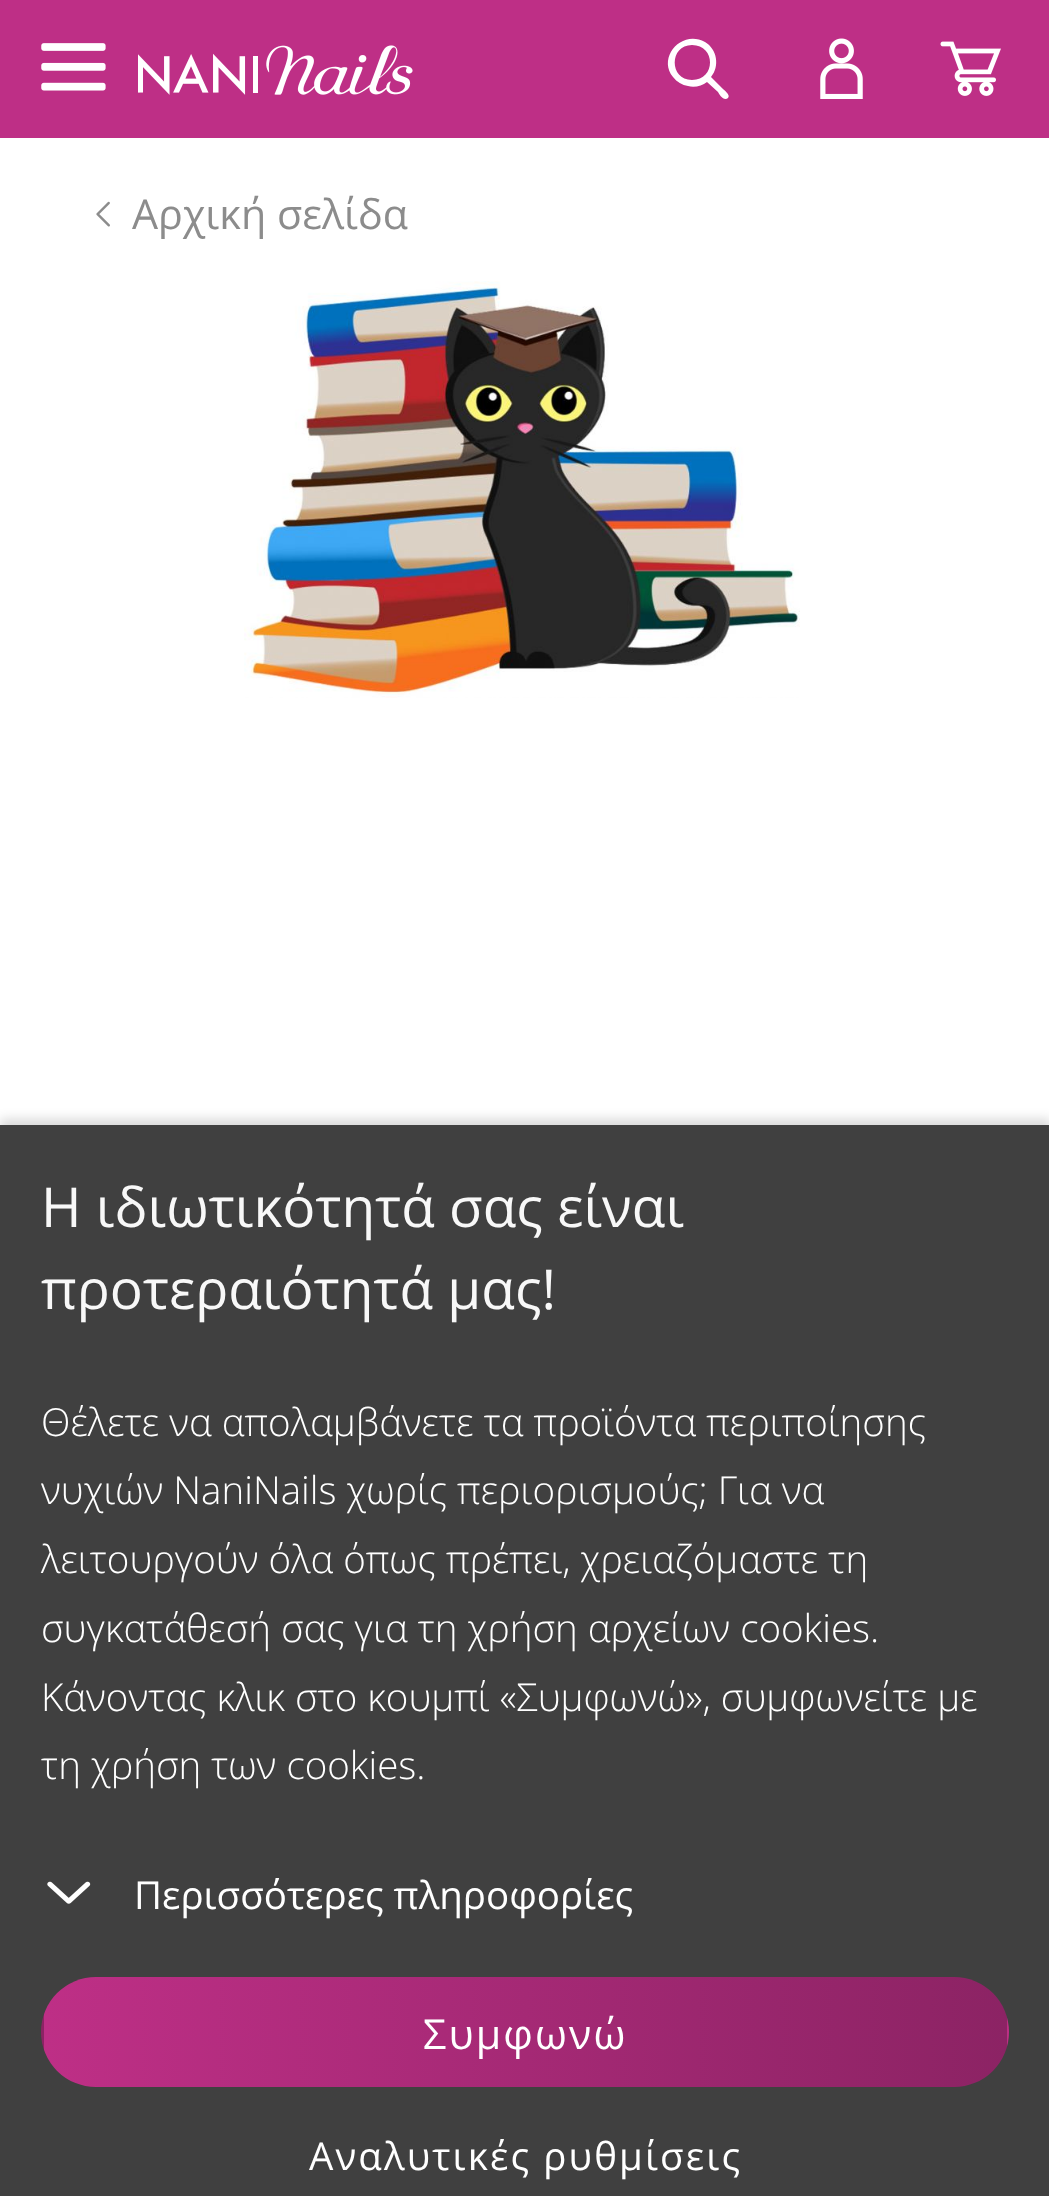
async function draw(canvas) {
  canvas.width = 1049;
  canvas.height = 2196;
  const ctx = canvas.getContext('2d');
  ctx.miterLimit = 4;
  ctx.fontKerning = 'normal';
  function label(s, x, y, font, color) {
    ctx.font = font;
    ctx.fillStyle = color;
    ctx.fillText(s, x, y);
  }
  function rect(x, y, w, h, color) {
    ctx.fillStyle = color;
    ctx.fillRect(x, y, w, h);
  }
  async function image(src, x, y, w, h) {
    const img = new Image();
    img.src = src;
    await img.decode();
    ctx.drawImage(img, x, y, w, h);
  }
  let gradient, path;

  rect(0, 0, 1049, 2196, '#fff');
  rect(0, 0, 627, 138, '#be2f86');
  await image('assets/img1.png', 41, 43, 65, 48);
  await image('assets/img2.png', 138, 45, 275, 50);
  rect(627, 0, 422, 138, '#be2f86');
  await image('assets/img3.png', 820, 38, 43, 61);
  await image('assets/img4.png', 940, 41, 61, 55);
  ctx.fillStyle = '#fff';
  path = new Path2D('M711 77C720 66 717 49 705 42C682 29 657 57 673 77C677 82 682 85 688 86C694 88 702 86 707 82L718 92C719 94 724 102 728 98C731 95 724 90 722 88ZM692 45C716 45 716 80 692 80C669 80 669 45 692 45Z');
  ctx.fill(path);
  await image('assets/img5.png', 96, 201, 14, 26);
  label('Αρχική σελίδα', 132, 229, '41.25px Open Sans', '#8c8c8c');
  await image('assets/img6.png', 244, 281, 556, 417);
  ctx.fillStyle = '#00000026';
  ctx.filter = 'blur(5.5px)';
  ctx.beginPath();
  ctx.rect(0, 1119, 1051, 1073);
  ctx.fill();
  ctx.filter = 'none';
  rect(0, 1125, 1049, 1071, '#404040');
  label('Η ιδιωτικότητά σας είναι', 41, 1227, '55px Open Sans', '#f8f8f8');
  label('προτεραιότητά μας!', 41, 1309, '55px Open Sans', '#f8f8f8');
  label('Θέλετε να απολαμβάνετε τα προϊόντα περιποίησης', 41, 1436, '300 38.5px Open Sans', '#fff');
  label('νυχιών NaniNails χωρίς περιορισμούς; Για να', 41, 1504, '300 38.5px Open Sans', '#fff');
  label('λειτουργούν όλα όπως πρέπει, χρειαζόμαστε τη', 41, 1573, '300 38.5px Open Sans', '#fff');
  label('συγκατάθεσή σας για τη χρήση αρχείων cookies.', 41, 1642, '300 38.5px Open Sans', '#fff');
  label('Κάνοντας κλικ στο κουμπί «Συμφωνώ», συμφωνείτε με', 41, 1711, '300 38.5px Open Sans', '#fff');
  label('τη χρήση των cookies.', 41, 1779, '300 38.5px Open Sans', '#fff');
  await image('assets/img7.png', 47, 1881, 44, 23);
  label('Περισσότερες πληροφορίες', 134, 1909, '38.5px Open Sans', '#fff');
  ctx.save();
  ctx.beginPath();
  ctx.roundRect(41, 1977, 968, 110, 55);
  ctx.clip();
  gradient = ctx.createLinearGradient(-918, 2032, 44, 2032);
  gradient.addColorStop(0, '#be2f86');
  gradient.addColorStop(1, '#8c2364');
  ctx.fillStyle = gradient;
  ctx.fillRect(41, 2014, 3, 36);
  gradient = ctx.createLinearGradient(44, 2032, 1007, 2032);
  gradient.addColorStop(0, '#be2f86');
  gradient.addColorStop(1, '#8c2364');
  ctx.fillStyle = gradient;
  ctx.fillRect(44, 1977, 963, 110);
  gradient = ctx.createLinearGradient(1007, 2032, 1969, 2032);
  gradient.addColorStop(0, '#be2f86');
  gradient.addColorStop(1, '#8c2364');
  ctx.fillStyle = gradient;
  ctx.fillRect(1007, 2017, 2, 30);
  ctx.restore();
  ctx.letterSpacing = '2.1px';
  label('Συμφωνώ', 423, 2049, '41.25px Open Sans', '#fff');
  label('Αναλυτικές ρυθμίσεις', 309, 2170, '38.5px Open Sans', '#fff');
}

draw(document.querySelector('canvas'));
